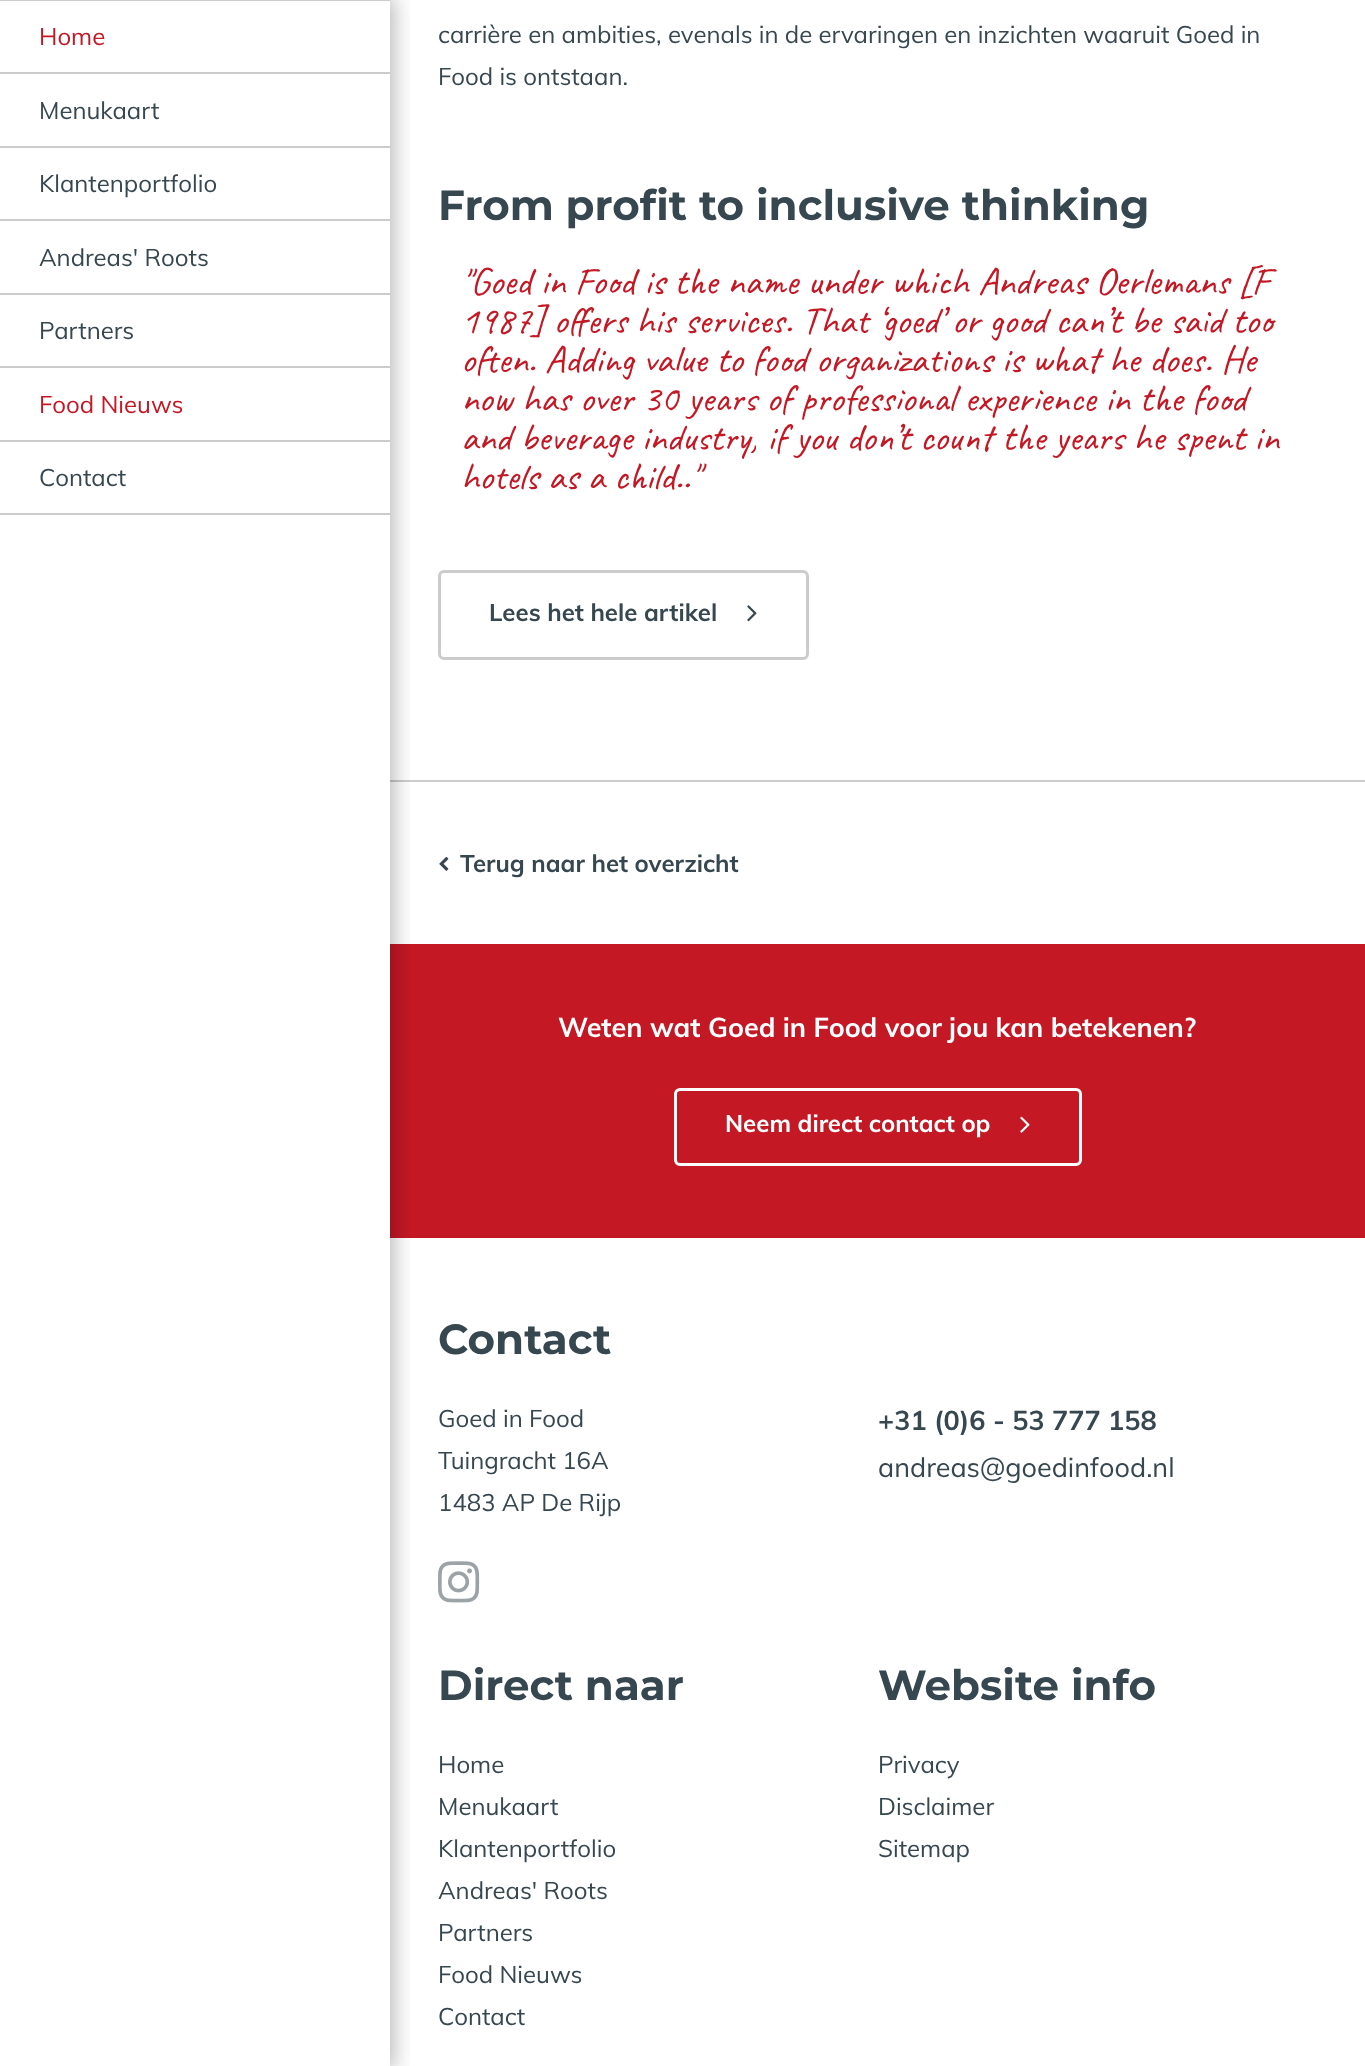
async function draw(canvas) {
  canvas.width = 1365;
  canvas.height = 2066;
  const ctx = canvas.getContext('2d');
  ctx.miterLimit = 4;
  ctx.fontKerning = 'normal';
  function label(s, x, y, font, color) {
    ctx.font = font;
    ctx.fillStyle = color;
    ctx.fillText(s, x, y);
  }
  function rect(x, y, w, h, color) {
    ctx.fillStyle = color;
    ctx.fillRect(x, y, w, h);
  }
  async function image(src, x, y, w, h) {
    const img = new Image();
    img.src = src;
    await img.decode();
    ctx.drawImage(img, x, y, w, h);
  }

  rect(0, 0, 1365, 2066, '#fff');
  rect(390, 780, 975, 2, '#ccc');
  rect(390, 944, 975, 294, '#c41825');
  ctx.save();
  ctx.beginPath();
  ctx.rect(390, 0, 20, 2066);
  ctx.clip();
  ctx.fillStyle = '#0000004d';
  ctx.filter = 'blur(11px)';
  ctx.beginPath();
  ctx.rect(-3, -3, 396, 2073);
  ctx.fill();
  ctx.filter = 'none';
  ctx.restore();
  label('carrière en ambities, evenals in de ervaringen en inzichten waaruit Goed in', 438, 43, '24px Muli', '#37474f');
  label('Food is ontstaan.', 438, 85, '24px Muli', '#37474f');
  label('From profit to inclusive thinking', 438, 220, 'bold 42px Montserrat', '#37474f');
  label('"Goed in Food is the name under which Andreas Oerlemans [F', 461, 294, '39px Caveat', '#c41825');
  label('1987] offers his services. That ‘goed’ or good can’t be said too', 461, 333, '39px Caveat', '#c41825');
  label('often. Adding value to food organizations is what he does. He', 461, 372, '39px Caveat', '#c41825');
  label('now has over 30 years of professional experience in the food', 461, 411, '39px Caveat', '#c41825');
  label('and beverage industry, if you don’t count the years he spent in', 461, 450, '39px Caveat', '#c41825');
  label('hotels as a child.."', 461, 489, '39px Caveat', '#c41825');
  ctx.beginPath();
  ctx.roundRect(439.5, 571.5, 368, 87, 4.5);
  ctx.strokeStyle = '#ccc';
  ctx.lineWidth = 3;
  ctx.stroke();
  label('Lees het hele artikel', 489, 621, 'bold 24px Muli', '#37474f');
  await image('assets/img1.png', 747, 605, 10, 17);
  await image('assets/img2.png', 439, 856, 10, 15);
  label('Terug naar het overzicht', 460, 872, 'bold 24px Muli', '#37474f');
  label('Weten wat Goed in Food voor jou kan betekenen?', 558, 1037, 'bold 27px Muli', '#fff');
  ctx.beginPath();
  ctx.roundRect(675.5, 1089.5, 405, 75, 4.5);
  ctx.strokeStyle = '#fff';
  ctx.stroke();
  label('Neem direct contact op', 725, 1132, 'bold 24px Muli', '#fff');
  await image('assets/img3.png', 1020, 1116, 10, 17);
  label('Contact', 438, 1354, 'bold 42px Montserrat', '#37474f');
  label('Goed in Food', 438, 1427, '24px Muli', '#37474f');
  label('Tuingracht 16A', 438, 1469, '24px Muli', '#37474f');
  label('1483 AP De Rijp', 438, 1511, '24px Muli', '#37474f');
  label('+31 (0)6 - 53 777 158', 878, 1430, 'bold 27px Muli', '#37474f');
  label('andreas@goedinfood.nl', 878, 1477, '27px Muli', '#37474f');
  await image('assets/img4.png', 438, 1561, 42, 42);
  label('Direct naar', 438, 1700, 'bold 42px Montserrat', '#37474f');
  label('Home', 438, 1773, '24px Muli', '#37474f');
  label('Menukaart', 438, 1815, '24px Muli', '#37474f');
  label('Klantenportfolio', 438, 1857, '24px Muli', '#37474f');
  label('Andreas\' Roots', 438, 1899, '24px Muli', '#37474f');
  label('Partners', 438, 1941, '24px Muli', '#37474f');
  label('Food Nieuws', 438, 1983, '24px Muli', '#37474f');
  label('Contact', 438, 2025, '24px Muli', '#37474f');
  label('Website info', 878, 1700, 'bold 42px Montserrat', '#37474f');
  label('Privacy', 878, 1773, '24px Muli', '#37474f');
  label('Disclaimer', 878, 1815, '24px Muli', '#37474f');
  label('Sitemap', 878, 1857, '24px Muli', '#37474f');
  rect(0, 0, 390, 1, '#ccc');
  label('Home', 39, 45, '24px Muli', '#c41825');
  rect(0, 72, 390, 2, '#ccc');
  label('Menukaart', 39, 119, '24px Muli', '#37474f');
  rect(0, 146, 390, 2, '#ccc');
  label('Klantenportfolio', 39, 192, '24px Muli', '#37474f');
  rect(0, 219, 390, 2, '#ccc');
  label('Andreas\' Roots', 39, 266, '24px Muli', '#37474f');
  rect(0, 293, 390, 2, '#ccc');
  label('Partners', 39, 339, '24px Muli', '#37474f');
  rect(0, 366, 390, 2, '#ccc');
  label('Food Nieuws', 39, 413, '24px Muli', '#c41825');
  rect(0, 440, 390, 2, '#ccc');
  rect(0, 513, 390, 2, '#ccc');
  label('Contact', 39, 486, '24px Muli', '#37474f');
}

draw(document.querySelector('canvas'));
